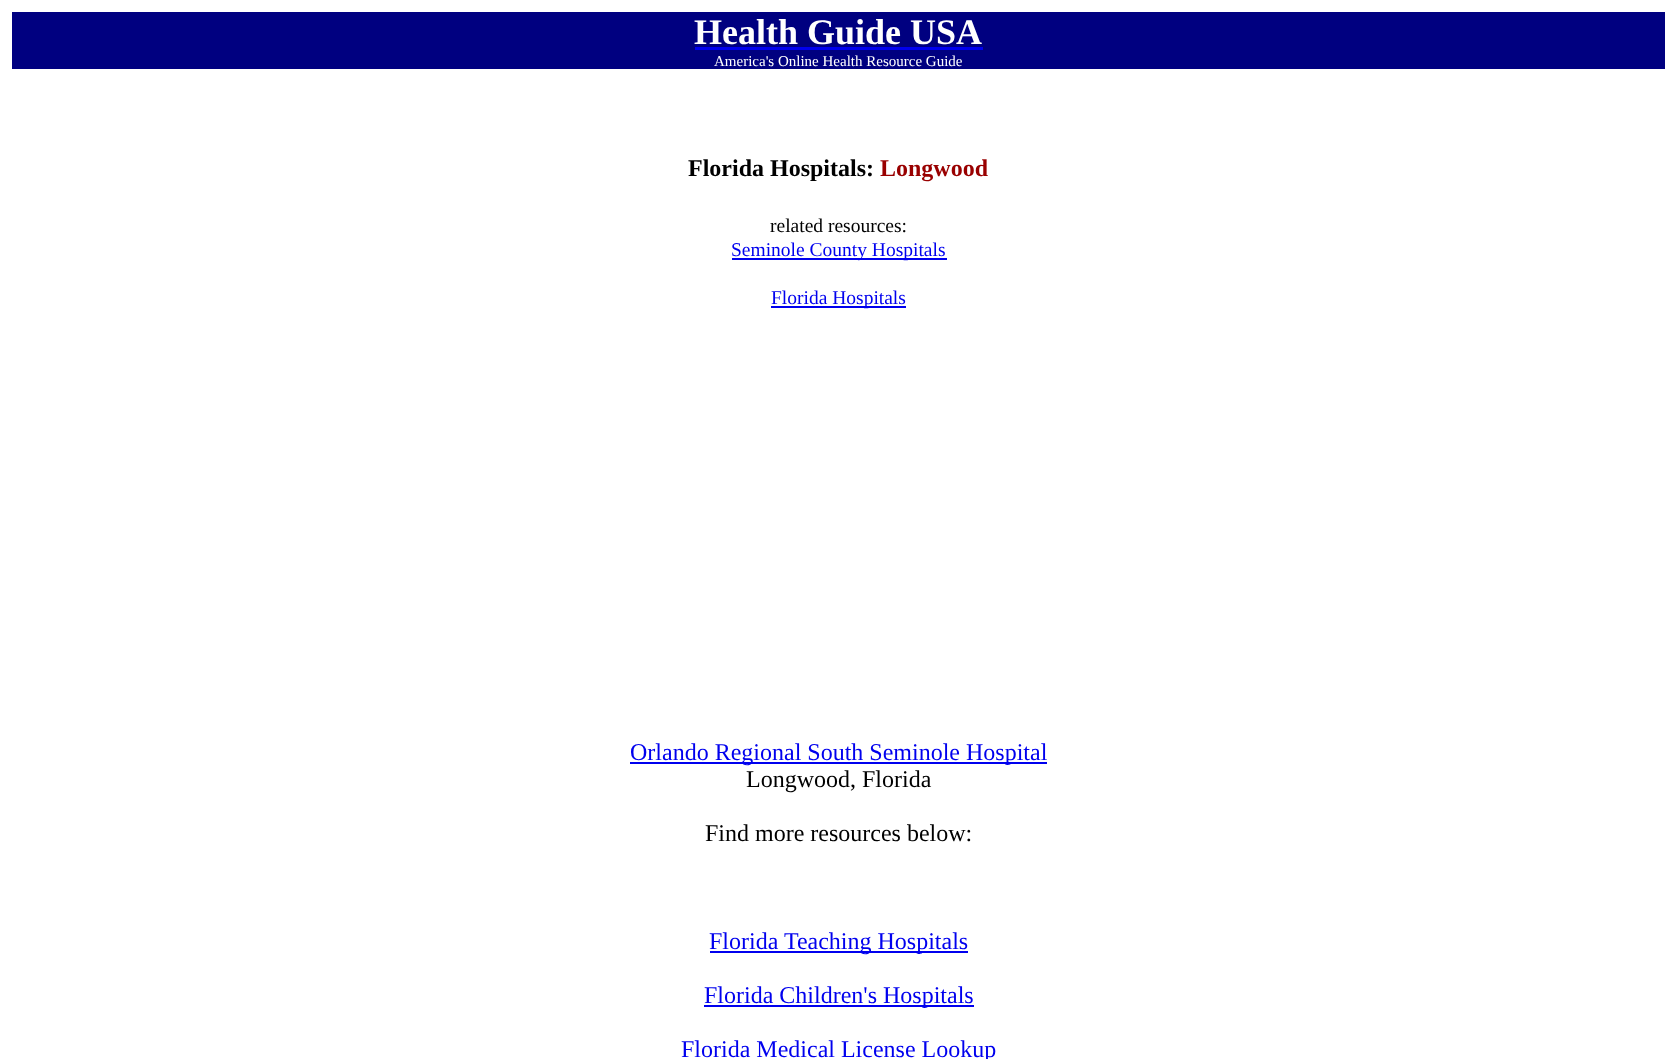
async function draw(canvas) {
  canvas.width = 1676;
  canvas.height = 1059;
  const ctx = canvas.getContext('2d');
  ctx.miterLimit = 4;
  ctx.fontKerning = 'normal';
  function label(s, x, y, font, color) {
    ctx.font = font;
    ctx.fillStyle = color;
    ctx.fillText(s, x, y);
  }
  function rect(x, y, w, h, color) {
    ctx.fillStyle = color;
    ctx.fillRect(x, y, w, h);
  }

  rect(0, 0, 1676, 1059, '#fff');
  rect(12, 12, 1653, 57, '#000080');
  label('Health Guide USA', 694, 44, 'bold 36px Liberation Serif', '#fff');
  rect(695, 47, 288, 3, '#00e');
  label('America\'s Online Health Resource Guide', 714, 66, '15px Liberation Serif', '#fff');
  label('Florida Hospitals:', 688, 176, 'bold 24px Liberation Serif', '#000');
  label('Longwood', 880, 176, 'bold 24px Liberation Serif', '#900');
  label('related resources:', 770, 232, '19.5px Liberation Serif', '#000');
  rect(732, 258, 215, 2, '#00e');
  label('Seminole County Hospitals', 731, 256, '19.5px Liberation Serif', '#00e');
  rect(771, 306, 135, 2, '#00e');
  label('Florida Hospitals', 771, 304, '19.5px Liberation Serif', '#00e');
  rect(630, 762, 417, 2, '#00e');
  label('Orlando Regional South Seminole Hospital', 630, 760, '24px Liberation Serif', '#00e');
  label('Longwood, Florida', 746, 787, '24px Liberation Serif', '#000');
  label('Find more resources below:', 705, 841, '24px Liberation Serif', '#000');
  rect(710, 951, 258, 2, '#00e');
  label('Florida Teaching Hospitals', 709, 949, '24px Liberation Serif', '#00e');
  rect(704, 1005, 270, 2, '#00e');
  label('Florida Children\'s Hospitals', 704, 1003, '24px Liberation Serif', '#00e');
  label('Florida Medical License Lookup', 681, 1057, '24px Liberation Serif', '#00e');
}

draw(document.querySelector('canvas'));
